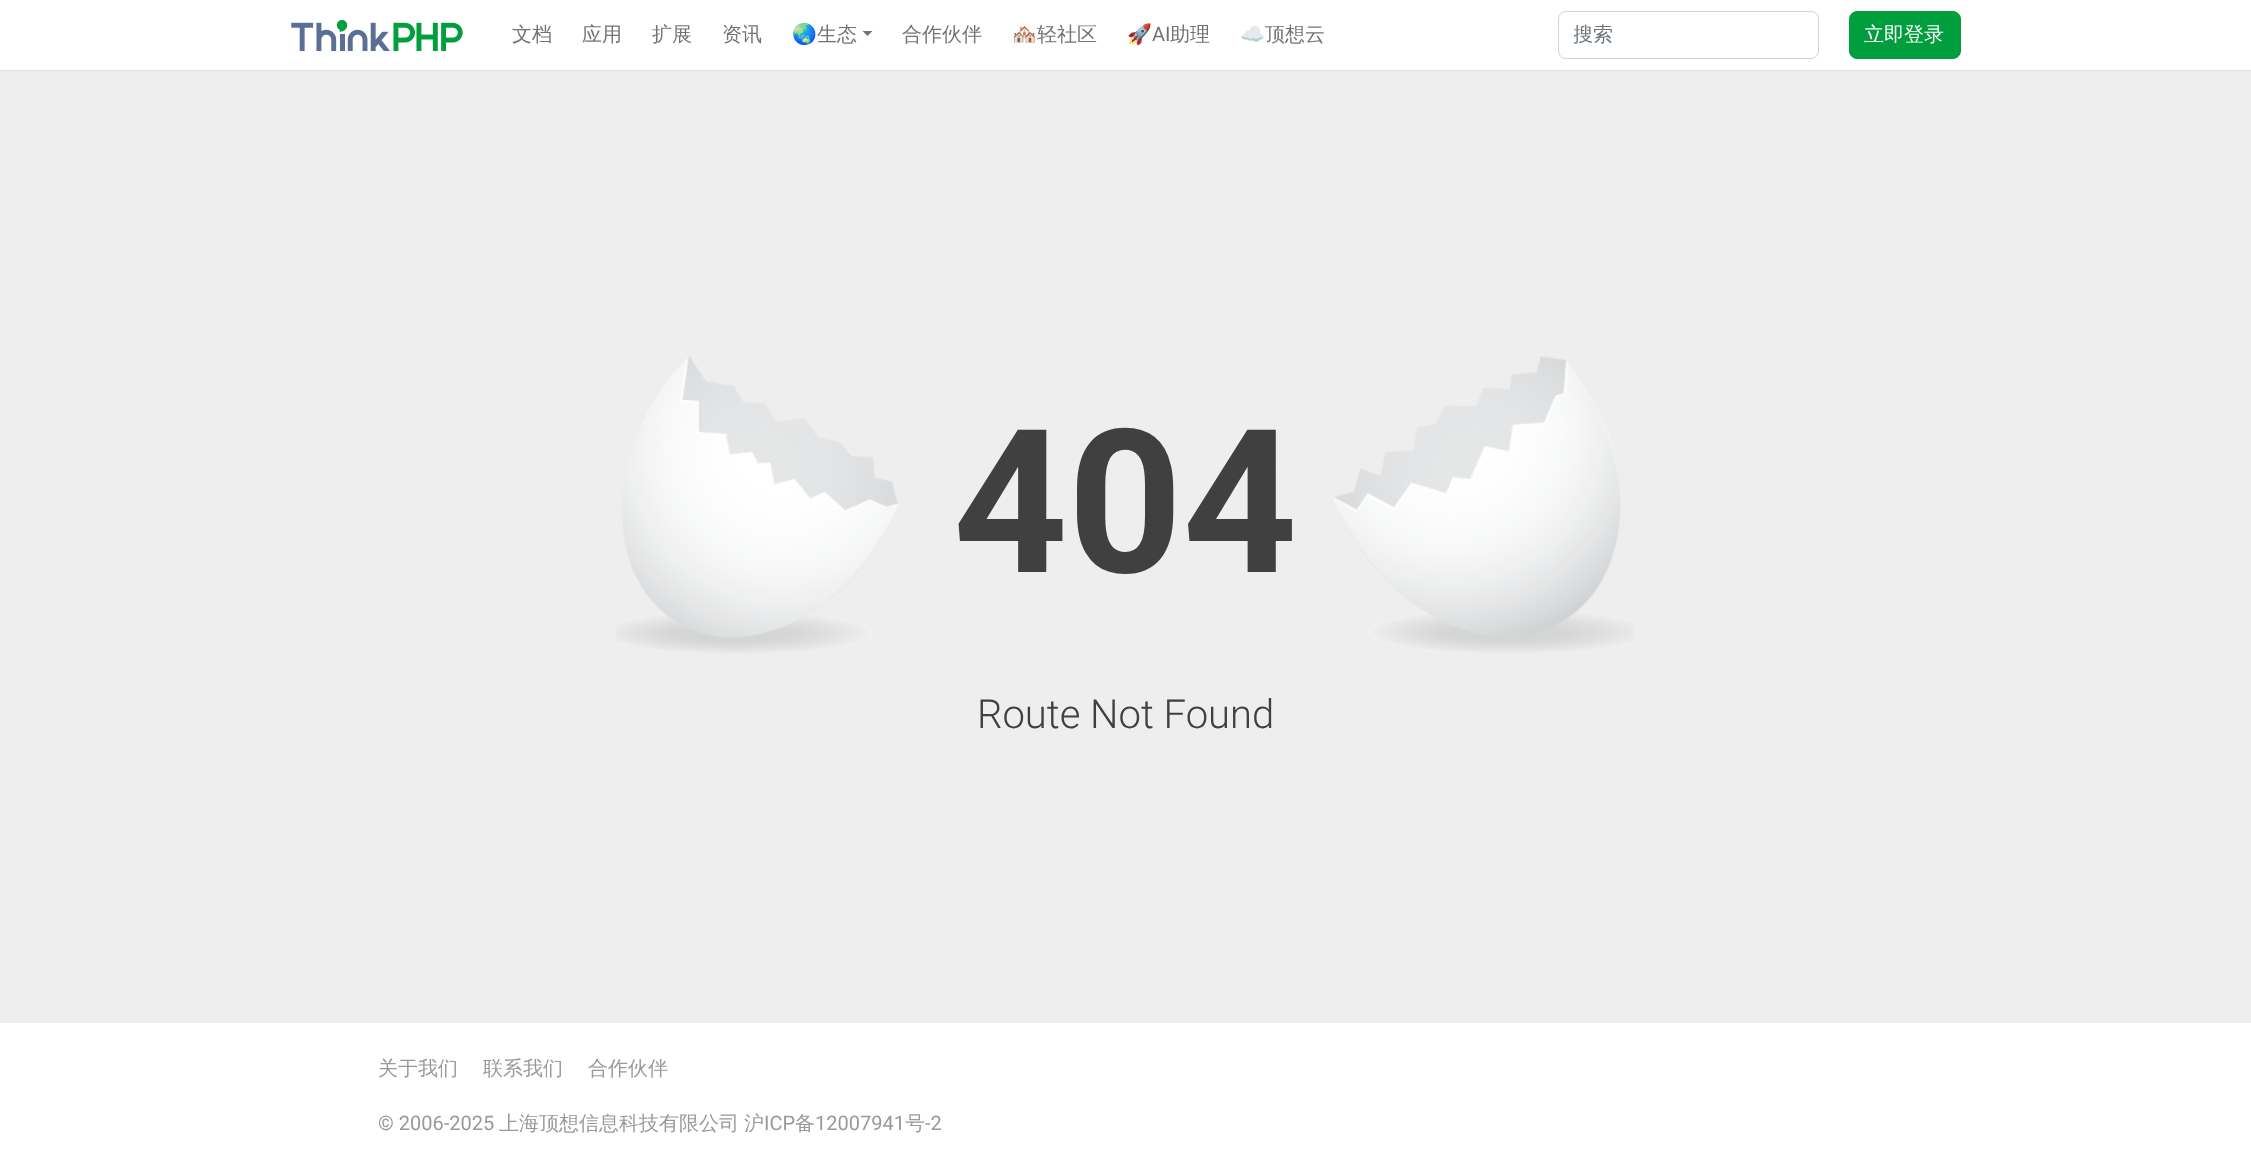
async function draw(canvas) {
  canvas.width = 2251;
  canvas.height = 1170;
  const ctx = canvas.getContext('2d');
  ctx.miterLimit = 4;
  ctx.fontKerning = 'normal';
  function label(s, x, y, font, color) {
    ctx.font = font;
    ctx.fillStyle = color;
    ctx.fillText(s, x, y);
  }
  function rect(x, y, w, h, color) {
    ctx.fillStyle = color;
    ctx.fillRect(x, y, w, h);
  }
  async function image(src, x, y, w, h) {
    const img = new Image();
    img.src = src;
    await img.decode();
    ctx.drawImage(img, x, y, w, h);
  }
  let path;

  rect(0, 0, 2251, 1170, '#eee');
  rect(0, 0, 2251, 70, '#fff');
  rect(0, 70, 2251, 1, '#dee2e6');
  await image('assets/img1.png', 291, 20, 172, 31);
  label('文档', 512, 41, '500 20px WenQuanYi Zen Hei', '#737373');
  label('应用', 582, 41, '500 20px WenQuanYi Zen Hei', '#737373');
  label('扩展', 652, 41, '500 20px WenQuanYi Zen Hei', '#737373');
  label('资讯', 722, 41, '500 20px WenQuanYi Zen Hei', '#737373');
  label('🌏', 792, 41, '20px Noto Color Emoji', '#737373');
  label('生态', 817, 41, '500 20px WenQuanYi Zen Hei', '#737373');
  path = new Path2D('M862.5 31H872.5L867.5 36Z');
  ctx.fill(path);
  label('合作伙伴', 902, 41, '500 20px WenQuanYi Zen Hei', '#737373');
  label('🏘️', 1012, 41, '20px Noto Color Emoji', '#737373');
  label('轻社区', 1037, 41, '500 20px WenQuanYi Zen Hei', '#737373');
  label('🚀', 1127, 41, '20px Noto Color Emoji', '#737373');
  label('AI', 1152, 41, '20px Roboto', '#737373');
  label('助理', 1170, 41, '500 20px WenQuanYi Zen Hei', '#737373');
  label('☁️', 1240, 41, '20px Noto Color Emoji', '#737373');
  label('顶想云', 1265, 41, '500 20px WenQuanYi Zen Hei', '#737373');
  ctx.beginPath();
  ctx.roundRect(1558.5, 11.5, 260, 47, 7.5);
  ctx.strokeStyle = '#ced4da';
  ctx.stroke();
  ctx.save();
  ctx.beginPath();
  ctx.rect(1574, 23, 210, 26);
  ctx.clip();
  label('搜索', 1573, 41, '500 20px WenQuanYi Zen Hei', '#6c757d');
  ctx.restore();
  ctx.fillStyle = '#009e3c';
  ctx.beginPath();
  ctx.roundRect(1849.5, 11.5, 111, 47, 7.5);
  ctx.fill();
  ctx.strokeStyle = '#009e3c';
  ctx.stroke();
  label('立即登录', 1864, 41, '500 20px WenQuanYi Zen Hei', '#fff');
  await image('assets/img2.png', 616, 356, 1018, 297);
  label('404', 953, 572, 'bold 200px Roboto', '#404040');
  label('Route Not Found', 977, 728, '300 40px Roboto', '#404040');
  rect(0, 1023, 2251, 147, '#fff');
  label('关于我们', 378, 1075, '500 20px WenQuanYi Zen Hei', '#999');
  label('联系我们', 483, 1075, '500 20px WenQuanYi Zen Hei', '#999');
  label('合作伙伴', 588, 1075, '500 20px WenQuanYi Zen Hei', '#999');
  label('© 2006-2025', 378, 1130, '20px Roboto', '#999');
  label('上海顶想信息科技有限公司', 499, 1130, '500 20px WenQuanYi Zen Hei', '#999');
  label('沪', 744, 1130, '500 20px WenQuanYi Zen Hei', '#999');
  label('ICP', 764, 1130, '20px Roboto', '#999');
  label('备', 795, 1130, '500 20px WenQuanYi Zen Hei', '#999');
  label('12007941', 815, 1130, '20px Roboto', '#999');
  label('号', 905, 1130, '500 20px WenQuanYi Zen Hei', '#999');
  label('-2', 925, 1130, '20px Roboto', '#999');
}

draw(document.querySelector('canvas'));
